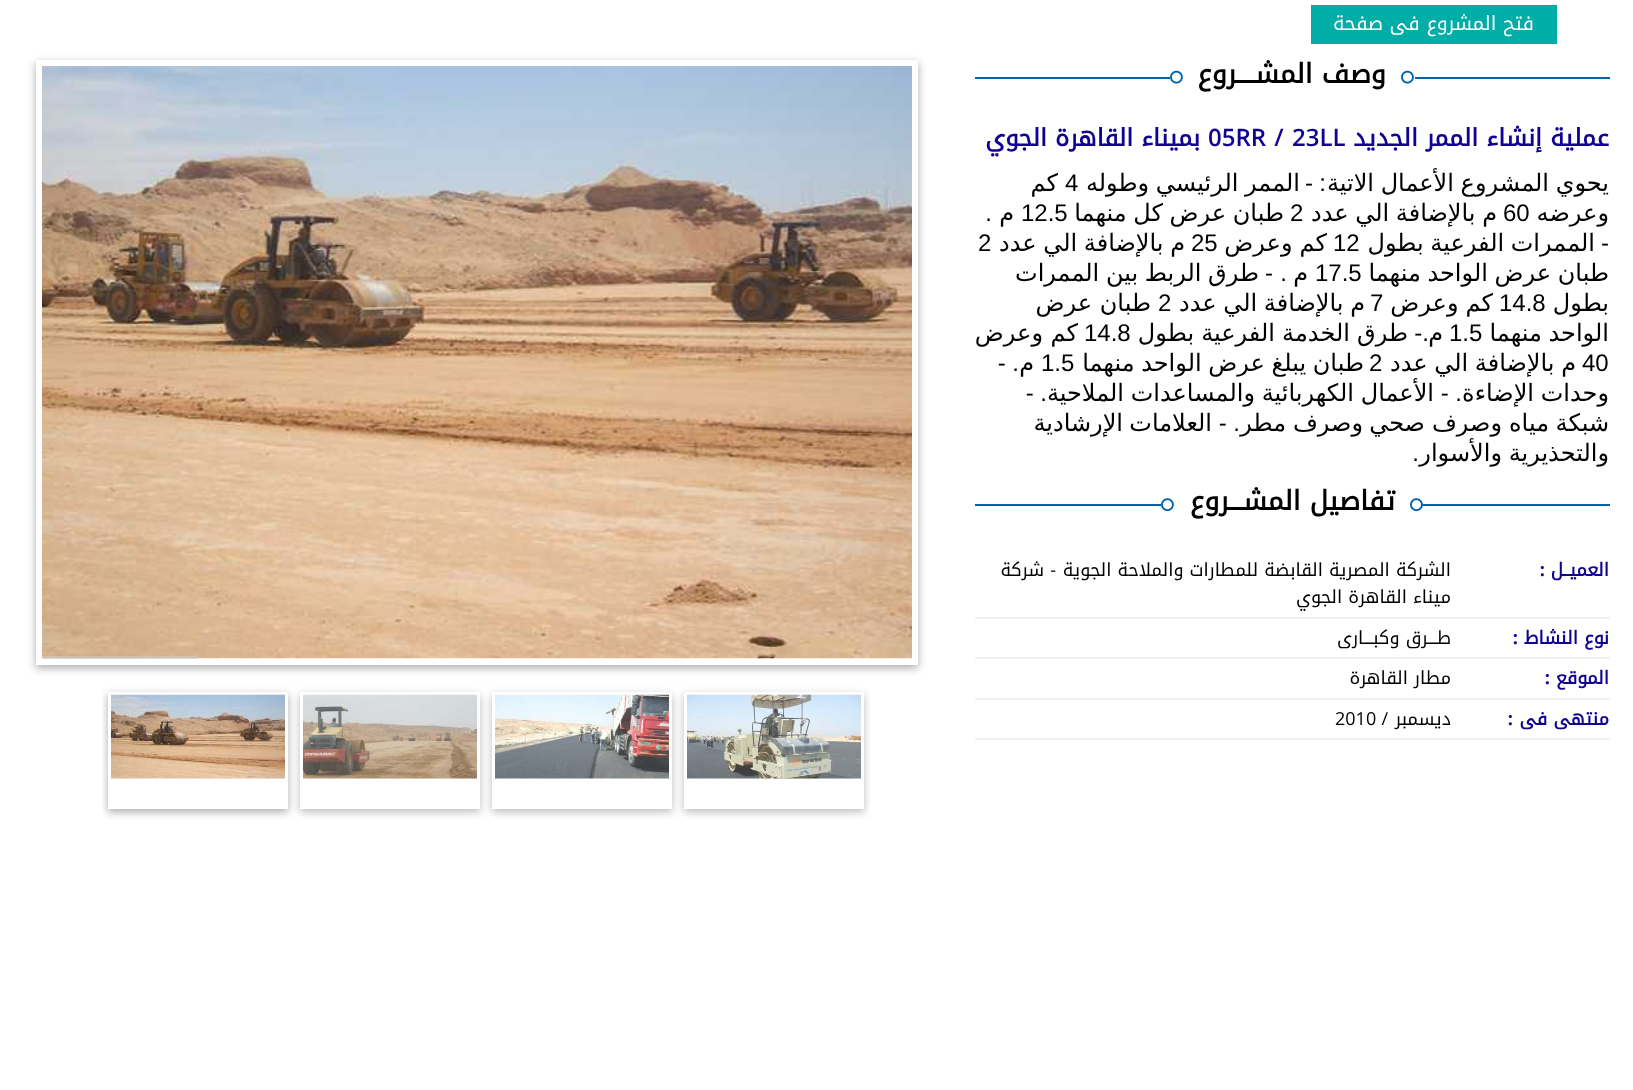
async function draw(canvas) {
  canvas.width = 1633;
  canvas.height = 1090;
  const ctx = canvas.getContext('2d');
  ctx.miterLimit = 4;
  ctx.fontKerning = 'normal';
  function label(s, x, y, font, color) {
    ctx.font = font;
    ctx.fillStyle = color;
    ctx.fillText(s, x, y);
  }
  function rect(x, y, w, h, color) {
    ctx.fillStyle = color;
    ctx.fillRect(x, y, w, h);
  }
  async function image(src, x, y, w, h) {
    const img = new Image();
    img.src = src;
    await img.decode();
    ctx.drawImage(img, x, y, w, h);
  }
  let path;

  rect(0, 0, 1633, 1090, '#fff');
  rect(1311, 5, 246, 39, '#00ada7');
  ctx.direction = 'rtl';
  label('فتح المشروع فى صفحة', 1534, 30, '19.5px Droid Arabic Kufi', '#fff');
  rect(975, 77, 635, 2, '#0064ad');
  rect(1170, 77, 245, 2, '#fff');
  await image('assets/img1.png', 1401, 70, 13, 14);
  label('وصف المشــــروع', 1386, 83, 'bold 27px Droid Arabic Kufi', '#000');
  await image('assets/img1.png', 1170, 70, 13, 14);
  label('عملية إنشاء الممر الجديد', 1609, 146, 'bold 24px Droid Arabic Kufi', '#110294');
  ctx.wordSpacing = '2px';
  ctx.direction = 'ltr';
  label('05RR / 23LL', 1208, 146, '600 24px Open Sans', '#110294');
  ctx.wordSpacing = '0px';
  ctx.direction = 'rtl';
  label('بميناء القاهرة الجوي', 1200, 146, 'bold 24px Droid Arabic Kufi', '#110294');
  ctx.wordSpacing = '-1px';
  label('يحوي المشروع الأعمال الاتية', 1609, 191, '24px DejaVu Sans', '#000');
  ctx.wordSpacing = '0px';
  label(':', 1326, 191, '24px Liberation Sans', '#000');
  label('-', 1313, 191, '24px Liberation Sans', '#000');
  ctx.wordSpacing = '-1px';
  label('الممر الرئيسي وطوله', 1300, 191, '24px DejaVu Sans', '#000');
  ctx.wordSpacing = '0px';
  ctx.direction = 'ltr';
  label('4', 1065, 191, '24px Liberation Sans', '#000');
  ctx.direction = 'rtl';
  label('كم', 1058, 191, '24px DejaVu Sans', '#000');
  label('وعرضه', 1609, 221, '24px DejaVu Sans', '#000');
  ctx.direction = 'ltr';
  label('60', 1503, 221, '24px Liberation Sans', '#000');
  ctx.wordSpacing = '-1px';
  ctx.direction = 'rtl';
  label('م بالإضافة الي عدد', 1497, 221, '24px DejaVu Sans', '#000');
  ctx.wordSpacing = '0px';
  ctx.direction = 'ltr';
  label('2', 1290, 221, '24px Liberation Sans', '#000');
  ctx.wordSpacing = '-1px';
  ctx.direction = 'rtl';
  label('طبان عرض كل منهما', 1284, 221, '24px DejaVu Sans', '#000');
  ctx.wordSpacing = '0px';
  ctx.direction = 'ltr';
  label('12.5', 1021, 221, '24px Liberation Sans', '#000');
  ctx.direction = 'rtl';
  label('م', 1014, 221, '24px DejaVu Sans', '#000');
  label('.', 992, 221, '24px Liberation Sans', '#000');
  label('-', 1609, 251, '24px Liberation Sans', '#000');
  ctx.wordSpacing = '-1px';
  label('الممرات الفرعية بطول', 1595, 251, '24px DejaVu Sans', '#000');
  ctx.wordSpacing = '0px';
  ctx.direction = 'ltr';
  label('12', 1333, 251, '24px Liberation Sans', '#000');
  ctx.wordSpacing = '-0.5px';
  ctx.direction = 'rtl';
  label('كم وعرض', 1327, 251, '24px DejaVu Sans', '#000');
  ctx.wordSpacing = '0px';
  ctx.direction = 'ltr';
  label('25', 1191, 251, '24px Liberation Sans', '#000');
  ctx.wordSpacing = '-1px';
  ctx.direction = 'rtl';
  label('م بالإضافة الي عدد', 1185, 251, '24px DejaVu Sans', '#000');
  ctx.wordSpacing = '0px';
  ctx.direction = 'ltr';
  label('2', 978, 251, '24px Liberation Sans', '#000');
  ctx.wordSpacing = '-1px';
  ctx.direction = 'rtl';
  label('طبان عرض الواحد منهما', 1609, 281, '24px DejaVu Sans', '#000');
  ctx.wordSpacing = '0px';
  ctx.direction = 'ltr';
  label('17.5', 1315, 281, '24px Liberation Sans', '#000');
  ctx.direction = 'rtl';
  label('م', 1308, 281, '24px DejaVu Sans', '#000');
  label('-', 1273, 281, '24px Liberation Sans', '#000');
  ctx.wordSpacing = '-1px';
  label('طرق الربط بين الممرات', 1259, 281, '24px DejaVu Sans', '#000');
  ctx.wordSpacing = '0px';
  label('.', 1287, 281, '24px Liberation Sans', '#000');
  label('بطول', 1609, 311, '24px DejaVu Sans', '#000');
  ctx.direction = 'ltr';
  label('14.8', 1499, 311, '24px Liberation Sans', '#000');
  ctx.wordSpacing = '-0.5px';
  ctx.direction = 'rtl';
  label('كم وعرض', 1493, 311, '24px DejaVu Sans', '#000');
  ctx.wordSpacing = '0px';
  ctx.direction = 'ltr';
  label('7', 1370, 311, '24px Liberation Sans', '#000');
  ctx.wordSpacing = '-1px';
  ctx.direction = 'rtl';
  label('م بالإضافة الي عدد', 1365, 311, '24px DejaVu Sans', '#000');
  ctx.wordSpacing = '0px';
  ctx.direction = 'ltr';
  label('2', 1158, 311, '24px Liberation Sans', '#000');
  ctx.direction = 'rtl';
  label('طبان عرض', 1151, 311, '24px DejaVu Sans', '#000');
  ctx.wordSpacing = '-1px';
  label('الواحد منهما', 1609, 341, '24px DejaVu Sans', '#000');
  ctx.wordSpacing = '0px';
  ctx.direction = 'ltr';
  label('1.5', 1449, 341, '24px Liberation Sans', '#000');
  ctx.direction = 'rtl';
  label('م', 1443, 341, '24px DejaVu Sans', '#000');
  label('.-', 1429, 341, '24px Liberation Sans', '#000');
  ctx.wordSpacing = '-0.5px';
  label('طرق الخدمة الفرعية بطول', 1408, 341, '24px DejaVu Sans', '#000');
  ctx.wordSpacing = '0px';
  ctx.direction = 'ltr';
  label('14.8', 1084, 341, '24px Liberation Sans', '#000');
  ctx.direction = 'rtl';
  label('كم وعرض', 1078, 341, '24px DejaVu Sans', '#000');
  ctx.direction = 'ltr';
  label('40', 1582, 371, '24px Liberation Sans', '#000');
  ctx.wordSpacing = '-1px';
  ctx.direction = 'rtl';
  label('م بالإضافة الي عدد', 1576, 371, '24px DejaVu Sans', '#000');
  ctx.wordSpacing = '0px';
  ctx.direction = 'ltr';
  label('2', 1369, 371, '24px Liberation Sans', '#000');
  ctx.wordSpacing = '-1px';
  ctx.direction = 'rtl';
  label('طبان يبلغ عرض الواحد منهما', 1364, 371, '24px DejaVu Sans', '#000');
  ctx.wordSpacing = '0px';
  ctx.direction = 'ltr';
  label('1.5', 1041, 371, '24px Liberation Sans', '#000');
  ctx.direction = 'rtl';
  label('م', 1034, 371, '24px DejaVu Sans', '#000');
  label('. -', 1019, 371, '24px Liberation Sans', '#000');
  label('وحدات', 1609, 401, '24px DejaVu Sans', '#000');
  label('الإضاءة', 1534, 401, '24px DejaVu Sans', '#000');
  label('. -', 1462, 401, '24px Liberation Sans', '#000');
  label('الأعمال', 1434, 401, '24px DejaVu Sans', '#000');
  label('الكهربائية', 1354, 401, '24px DejaVu Sans', '#000');
  label('والمساعدات', 1255, 401, '24px DejaVu Sans', '#000');
  label('الملاحية', 1124, 401, '24px DejaVu Sans', '#000');
  label('. -', 1047, 401, '24px Liberation Sans', '#000');
  label('شبكة', 1609, 431, '24px DejaVu Sans', '#000');
  label('مياه', 1549, 431, '24px DejaVu Sans', '#000');
  label('وصرف', 1502, 431, '24px DejaVu Sans', '#000');
  label('صحي', 1425, 431, '24px DejaVu Sans', '#000');
  label('وصرف', 1363, 431, '24px DejaVu Sans', '#000');
  label('. -', 1240, 431, '24px Liberation Sans', '#000');
  label('مطر', 1286, 431, '24px DejaVu Sans', '#000');
  label('العلامات', 1212, 431, '24px DejaVu Sans', '#000');
  label('الإرشادية', 1123, 431, '24px DejaVu Sans', '#000');
  ctx.wordSpacing = '-1px';
  label('والتحذيرية والأسوار', 1609, 461, '24px DejaVu Sans', '#000');
  ctx.wordSpacing = '0px';
  label('.', 1419, 461, '24px Liberation Sans', '#000');
  rect(975, 504, 635, 2, '#0064ad');
  rect(1161, 504, 261, 2, '#fff');
  await image('assets/img2.png', 1410, 498, 13, 14);
  label('تفاصيل المشـــروع', 1395, 510, 'bold 27px Droid Arabic Kufi', '#000');
  await image('assets/img3.png', 1161, 498, 13, 14);
  rect(975, 617, 635, 2, '#f2f2f2');
  label('العميــل', 1609, 576, 'bold 18px Droid Arabic Kufi', '#110294');
  label(':', 1545, 576, 'bold 18px Open Sans', '#110294');
  label('الشركة المصرية القابضة للمطارات والملاحة الجوية', 1451, 576, '18px Droid Arabic Kufi', '#000');
  label('-', 1056, 576, '18px Open Sans', '#000');
  label('شركة', 1044, 576, '18px Droid Arabic Kufi', '#000');
  label('ميناء القاهرة الجوي', 1451, 603, '18px Droid Arabic Kufi', '#000');
  rect(975, 657, 635, 2, '#f2f2f2');
  label('نوع النشاط', 1609, 644, 'bold 18px Droid Arabic Kufi', '#110294');
  label(':', 1518, 644, 'bold 18px Open Sans', '#110294');
  label('طـــرق وكبـــارى', 1451, 644, '18px Droid Arabic Kufi', '#000');
  rect(975, 698, 635, 2, '#f2f2f2');
  label('الموقع', 1609, 684, 'bold 18px Droid Arabic Kufi', '#110294');
  label(':', 1550, 684, 'bold 18px Open Sans', '#110294');
  label('مطار القاهرة', 1451, 684, '18px Droid Arabic Kufi', '#000');
  rect(975, 738, 635, 2, '#f2f2f2');
  label('منتهى فى', 1609, 725, 'bold 18px Droid Arabic Kufi', '#110294');
  label(':', 1513, 725, 'bold 18px Open Sans', '#110294');
  label('ديسمبر', 1451, 725, '18px Droid Arabic Kufi', '#000');
  label('/', 1388, 725, '18px Open Sans', '#000');
  ctx.direction = 'ltr';
  label('2010', 1335, 725, '18px Open Sans', '#000');
  ctx.save();
  path = new Path2D('M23 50H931V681H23ZM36 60H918V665H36Z');
  ctx.clip(path, 'evenodd');
  ctx.fillStyle = '#aaa';
  ctx.filter = 'blur(4px)';
  ctx.beginPath();
  ctx.rect(36, 63, 882, 605);
  ctx.fill();
  ctx.filter = 'none';
  ctx.restore();
  await image('assets/img4.png', 42, 66, 870, 593);
  rect(42, 656, 155, 3, '#cccccc99');
  ctx.save();
  ctx.beginPath();
  ctx.rect(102, 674, 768, 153);
  ctx.clip();
  ctx.fillStyle = '#aaa';
  ctx.filter = 'blur(4px)';
  ctx.beginPath();
  ctx.rect(108, 695, 180, 117);
  ctx.fill();
  ctx.filter = 'none';
  ctx.restore();
  rect(108, 692, 180, 117, '#fff');
  ctx.fillStyle = '#aaaaaacc';
  ctx.filter = 'blur(4px)';
  ctx.beginPath();
  ctx.rect(300, 695, 180, 117);
  ctx.fill();
  ctx.filter = 'none';
  rect(300, 692, 180, 117, '#fff');
  ctx.fillStyle = '#aaaaaacc';
  ctx.filter = 'blur(4px)';
  ctx.beginPath();
  ctx.rect(492, 695, 180, 117);
  ctx.fill();
  ctx.filter = 'none';
  rect(492, 692, 180, 117, '#fff');
  ctx.save();
  ctx.beginPath();
  ctx.rect(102, 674, 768, 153);
  ctx.clip();
  ctx.fillStyle = '#aaaaaacc';
  ctx.filter = 'blur(4px)';
  ctx.beginPath();
  ctx.rect(684, 695, 180, 117);
  ctx.fill();
  ctx.filter = 'none';
  ctx.restore();
  rect(684, 692, 180, 117, '#fff');
  await image('assets/img5.png', 687, 694, 174, 85);
  await image('assets/img6.png', 495, 694, 174, 85);
  await image('assets/img7.png', 303, 694, 174, 85);
  await image('assets/img8.png', 111, 694, 174, 85);
}

draw(document.querySelector('canvas'));
